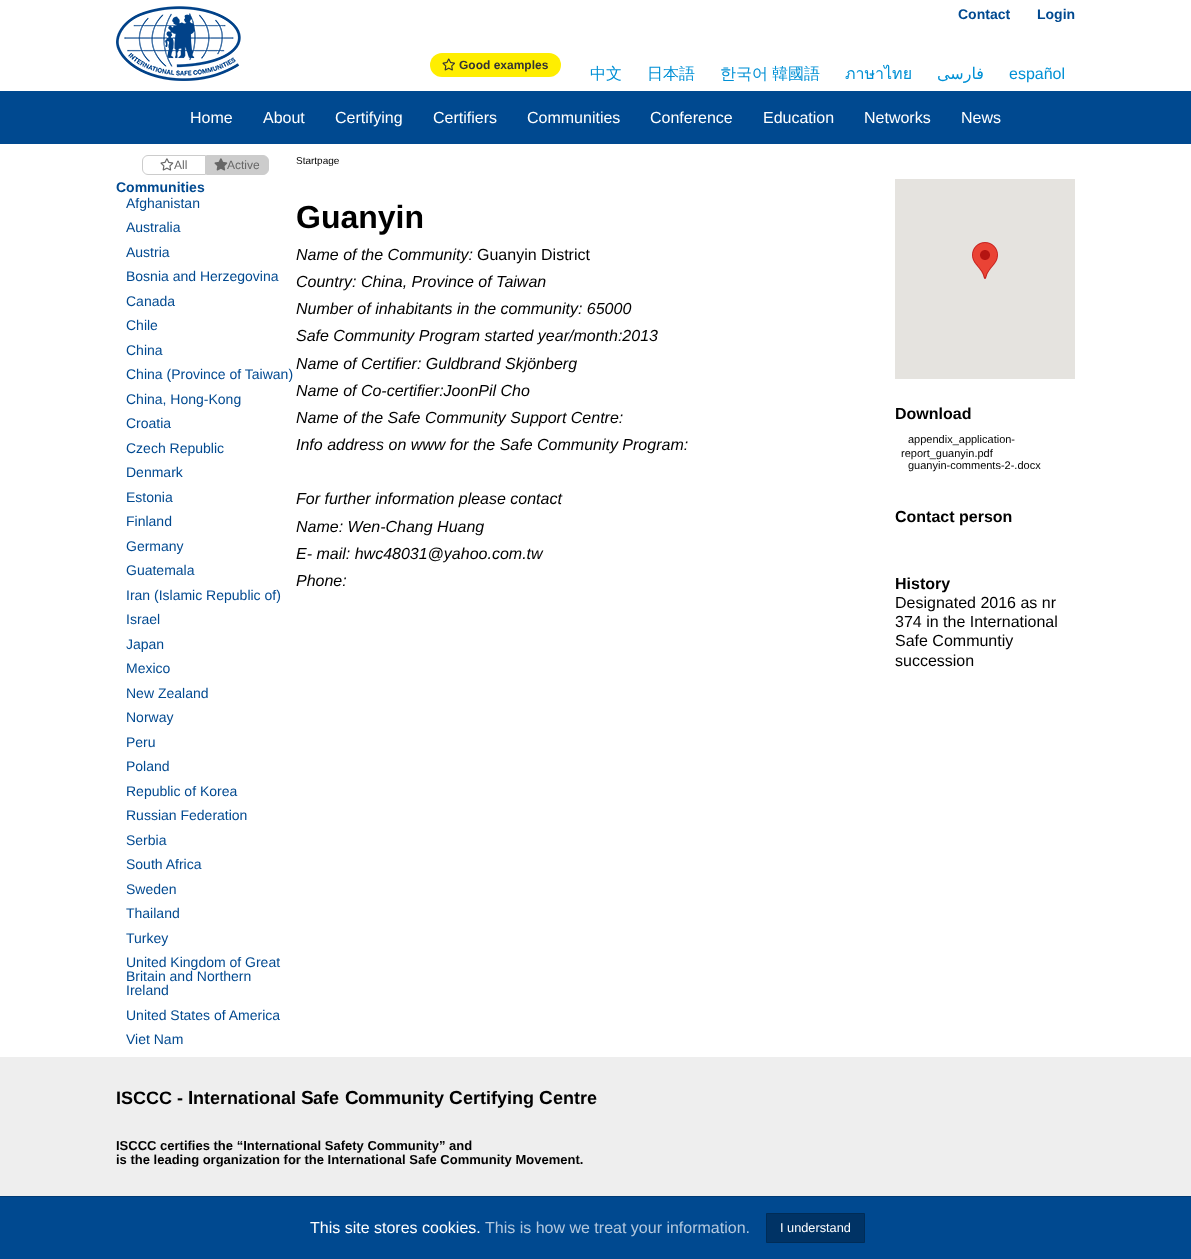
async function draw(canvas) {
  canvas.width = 1191;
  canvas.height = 1259;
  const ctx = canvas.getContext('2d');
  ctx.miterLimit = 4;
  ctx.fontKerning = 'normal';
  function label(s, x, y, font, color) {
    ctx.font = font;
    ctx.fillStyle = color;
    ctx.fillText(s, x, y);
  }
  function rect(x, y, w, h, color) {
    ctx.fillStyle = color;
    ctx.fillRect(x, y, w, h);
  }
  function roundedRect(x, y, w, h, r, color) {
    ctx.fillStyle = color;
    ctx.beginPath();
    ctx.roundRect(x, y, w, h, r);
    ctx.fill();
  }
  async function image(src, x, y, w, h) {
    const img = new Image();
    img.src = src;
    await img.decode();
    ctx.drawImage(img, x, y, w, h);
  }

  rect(0, 0, 1191, 1259, '#fff');
  await image('assets/img1.png', 116, 6, 125, 75);
  label('Contact', 958, 19, 'bold 14px Liberation Sans', '#004990');
  label('Login', 1037, 19, 'bold 14px Liberation Sans', '#004990');
  roundedRect(430, 53, 131, 24, 12, '#fe0');
  await image('assets/img2.png', 442, 58, 13, 13);
  label('Good examples', 459, 69, 'bold 12px Liberation Sans', '#333');
  label('中文', 590, 79, '500 16px WenQuanYi Zen Hei', '#0090d5');
  label('日本語', 647, 79, '500 16px WenQuanYi Zen Hei', '#0090d5');
  label('한국어', 720, 79, '500 16px WenQuanYi Zen Hei', '#0090d5');
  label('韓國語', 772, 79, '500 16px WenQuanYi Zen Hei', '#0090d5');
  label('ภาษาไทย', 845, 79, '16px Loma', '#0090d5');
  ctx.direction = 'rtl';
  label('فارسی', 984, 79, '16px DejaVu Sans', '#0090d5');
  ctx.direction = 'ltr';
  label('español', 1009, 79, '16px Liberation Sans', '#0090d5');
  rect(0, 91, 1191, 53, '#004990');
  label('Home', 190, 123, '16px Liberation Sans', '#fff');
  label('About', 263, 123, '16px Liberation Sans', '#fff');
  label('Certifying', 335, 123, '16px Liberation Sans', '#fff');
  label('Certifiers', 433, 123, '16px Liberation Sans', '#fff');
  label('Communities', 527, 123, '16px Liberation Sans', '#fff');
  label('Conference', 650, 123, '16px Liberation Sans', '#fff');
  label('Education', 763, 123, '16px Liberation Sans', '#fff');
  label('Networks', 864, 123, '16px Liberation Sans', '#fff');
  label('News', 961, 123, '16px Liberation Sans', '#fff');
  label('Startpage', 296, 164, '10px Liberation Sans', '#000');
  ctx.beginPath();
  ctx.roundRect(142.5, 155.5, 63, 19, [5.5, 0, 0, 5.5]);
  ctx.strokeStyle = '#ccc';
  ctx.stroke();
  await image('assets/img3.png', 160, 158, 14, 13);
  label('All', 174, 169, '12px Liberation Sans', '#666');
  ctx.fillStyle = '#ccc';
  ctx.beginPath();
  ctx.roundRect(206.5, 155.5, 62, 19, [0, 5.5, 5.5, 0]);
  ctx.fill();
  ctx.stroke();
  await image('assets/img4.png', 214, 158, 14, 13);
  label('Active', 227, 169, '12px Liberation Sans', '#666');
  label('Communities', 116, 192, 'bold 14px Liberation Sans', '#004990');
  label('Afghanistan', 126, 208, '14px Liberation Sans', '#004990');
  label('Australia', 126, 232, '14px Liberation Sans', '#004990');
  label('Austria', 126, 257, '14px Liberation Sans', '#004990');
  label('Bosnia and Herzegovina', 126, 281, '14px Liberation Sans', '#004990');
  label('Canada', 126, 306, '14px Liberation Sans', '#004990');
  label('Chile', 126, 330, '14px Liberation Sans', '#004990');
  label('China', 126, 355, '14px Liberation Sans', '#004990');
  label('China (Province of Taiwan)', 126, 379, '14px Liberation Sans', '#004990');
  label('China, Hong-Kong', 126, 404, '14px Liberation Sans', '#004990');
  label('Croatia', 126, 428, '14px Liberation Sans', '#004990');
  label('Czech Republic', 126, 453, '14px Liberation Sans', '#004990');
  label('Denmark', 126, 477, '14px Liberation Sans', '#004990');
  label('Estonia', 126, 502, '14px Liberation Sans', '#004990');
  label('Finland', 126, 526, '14px Liberation Sans', '#004990');
  label('Germany', 126, 551, '14px Liberation Sans', '#004990');
  label('Guatemala', 126, 575, '14px Liberation Sans', '#004990');
  label('Iran (Islamic Republic of)', 126, 600, '14px Liberation Sans', '#004990');
  label('Israel', 126, 624, '14px Liberation Sans', '#004990');
  label('Japan', 126, 649, '14px Liberation Sans', '#004990');
  label('Mexico', 126, 673, '14px Liberation Sans', '#004990');
  label('New Zealand', 126, 698, '14px Liberation Sans', '#004990');
  label('Norway', 126, 722, '14px Liberation Sans', '#004990');
  label('Peru', 126, 747, '14px Liberation Sans', '#004990');
  label('Poland', 126, 771, '14px Liberation Sans', '#004990');
  label('Republic of Korea', 126, 796, '14px Liberation Sans', '#004990');
  label('Russian Federation', 126, 820, '14px Liberation Sans', '#004990');
  label('Serbia', 126, 845, '14px Liberation Sans', '#004990');
  label('South Africa', 126, 869, '14px Liberation Sans', '#004990');
  label('Sweden', 126, 894, '14px Liberation Sans', '#004990');
  label('Thailand', 126, 918, '14px Liberation Sans', '#004990');
  label('Turkey', 126, 943, '14px Liberation Sans', '#004990');
  label('United Kingdom of Great', 126, 967, '14px Liberation Sans', '#004990');
  label('Britain and Northern', 126, 981, '14px Liberation Sans', '#004990');
  label('Ireland', 126, 995, '14px Liberation Sans', '#004990');
  label('United States of America', 126, 1020, '14px Liberation Sans', '#004990');
  label('Viet Nam', 126, 1044, '14px Liberation Sans', '#004990');
  label('Guanyin', 296, 228, 'bold 32px Liberation Sans', '#000');
  label('Name of the Community:', 296, 260, 'italic 16px Liberation Sans', '#000');
  label('Guanyin District', 477, 260, '16px Liberation Sans', '#000');
  label('Country: China, Province of Taiwan', 296, 287, 'italic 16px Liberation Sans', '#000');
  label('Number of inhabitants in the community: 65000', 296, 314, 'italic 16px Liberation Sans', '#000');
  label('Safe Community Program started year/month:2013', 296, 341, 'italic 16px Liberation Sans', '#000');
  label('Name of Certifier: Guldbrand Skjönberg', 296, 369, 'italic 16px Liberation Sans', '#000');
  label('Name of Co-certifier:JoonPil Cho', 296, 396, 'italic 16px Liberation Sans', '#000');
  label('Name of the Safe Community Support Centre:', 296, 423, 'italic 16px Liberation Sans', '#000');
  label('Info address on www for the Safe Community Program:', 296, 450, 'italic 16px Liberation Sans', '#000');
  label('For further information please contact', 296, 504, 'italic 16px Liberation Sans', '#000');
  label('Name: Wen-Chang Huang', 296, 532, 'italic 16px Liberation Sans', '#000');
  label('E- mail: hwc48031@yahoo.com.tw', 296, 559, 'italic 16px Liberation Sans', '#000');
  label('Phone:', 296, 586, 'italic 16px Liberation Sans', '#000');
  rect(895, 179, 180, 200, '#e5e3df');
  await image('assets/img5.png', 972, 242, 26, 37);
  label('Download', 895, 419, 'bold 16px Liberation Sans', '#000');
  label('appendix_application-', 908, 443, '11px Liberation Sans', '#000');
  label('report_guanyin.pdf', 901, 457, '11px Liberation Sans', '#000');
  label('guanyin-comments-2-.docx', 908, 469, '11px Liberation Sans', '#000');
  label('Contact person', 895, 522, 'bold 16px Liberation Sans', '#000');
  label('History', 895, 589, 'bold 16px Liberation Sans', '#000');
  label('Designated 2016 as nr', 895, 608, '16px Liberation Sans', '#000');
  label('374 in the International', 895, 627, '16px Liberation Sans', '#000');
  label('Safe Communtiy', 895, 646, '16px Liberation Sans', '#000');
  label('succession', 895, 666, '16px Liberation Sans', '#000');
  rect(0, 1057, 1191, 139, '#eee');
  label('ISCCC -', 116, 1104, 'bold 18px Liberation Sans', '#000');
  label('I', 188, 1104, 'bold 19px Liberation Sans', '#000');
  label('nternational', 193, 1104, 'bold 18px Liberation Sans', '#000');
  label('S', 301, 1104, 'bold 19px Liberation Sans', '#000');
  label('afe', 313, 1104, 'bold 18px Liberation Sans', '#000');
  label('C', 345, 1104, 'bold 19px Liberation Sans', '#000');
  label('ommunity', 358, 1104, 'bold 18px Liberation Sans', '#000');
  label('C', 449, 1104, 'bold 19px Liberation Sans', '#000');
  label('ertifying', 463, 1104, 'bold 18px Liberation Sans', '#000');
  label('C', 539, 1104, 'bold 19px Liberation Sans', '#000');
  label('entre', 553, 1104, 'bold 18px Liberation Sans', '#000');
  label('ISCCC certifies the “International Safety Community” and', 116, 1150, 'bold 13px Liberation Sans', '#000');
  label('is the leading organization for the International Safe Community Movement.', 116, 1164, 'bold 13px Liberation Sans', '#000');
  rect(0, 1197, 1191, 62, '#004990');
  rect(0, 1196, 1191, 1, '#003a73');
  label('This site stores cookies.', 310, 1233, '16px Liberation Sans', '#fff');
  label('This is how we treat your information.', 485, 1233, '16px Liberation Sans', '#b3c8de');
  ctx.fillStyle = '#003365';
  ctx.beginPath();
  ctx.rect(766.5, 1213.5, 98, 29);
  ctx.fill();
  ctx.strokeStyle = '#002c56';
  ctx.stroke();
  label('I understand', 780, 1232, '12.75px Liberation Sans', '#fff');
}

draw(document.querySelector('canvas'));
